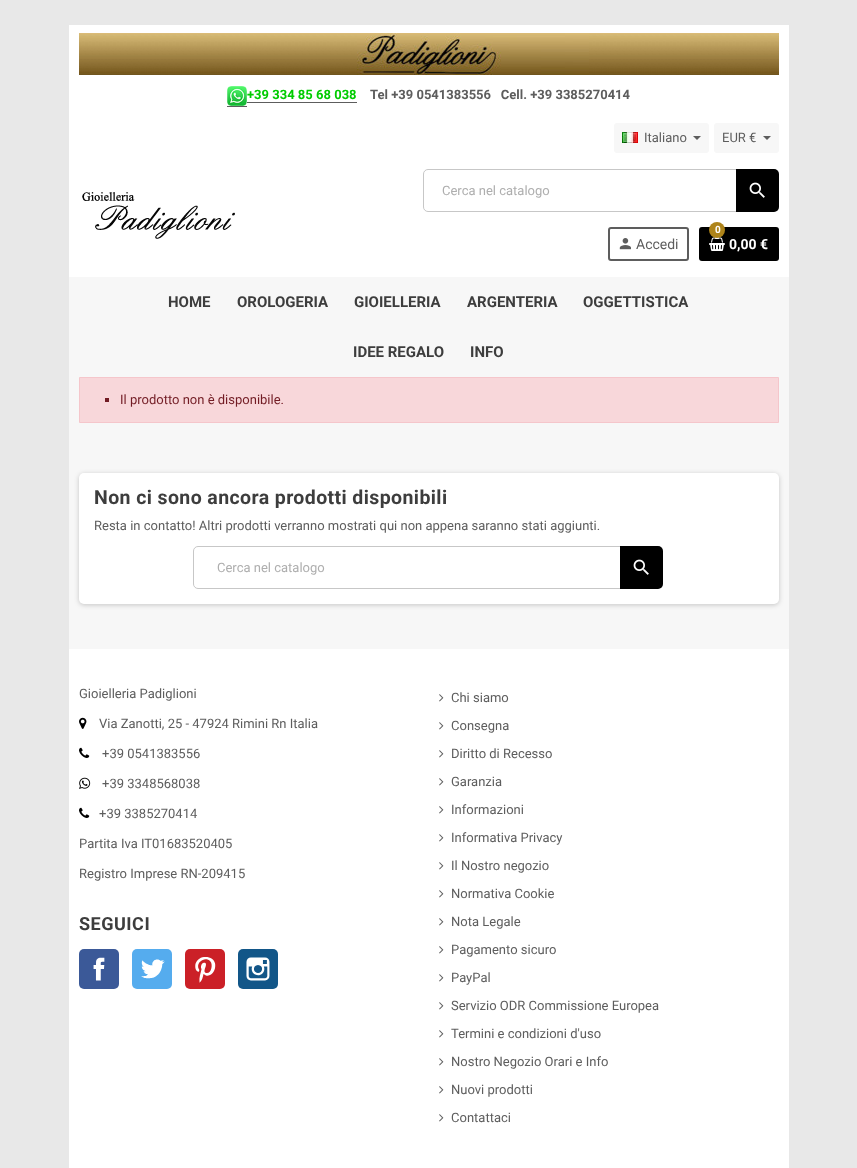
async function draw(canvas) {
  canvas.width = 857;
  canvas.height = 1168;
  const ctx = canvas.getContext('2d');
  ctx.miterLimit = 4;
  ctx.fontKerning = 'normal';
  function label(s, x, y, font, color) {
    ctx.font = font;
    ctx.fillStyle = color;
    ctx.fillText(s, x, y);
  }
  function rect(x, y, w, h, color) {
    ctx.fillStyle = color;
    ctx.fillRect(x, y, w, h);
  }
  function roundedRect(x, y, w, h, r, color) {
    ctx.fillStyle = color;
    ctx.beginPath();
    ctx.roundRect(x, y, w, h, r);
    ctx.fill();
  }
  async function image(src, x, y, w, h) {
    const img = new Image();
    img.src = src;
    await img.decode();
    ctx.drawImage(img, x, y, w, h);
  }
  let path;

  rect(0, 0, 857, 1168, '#e8e8e8');
  rect(69, 25, 720, 252, '#fff');
  await image('assets/img1.png', 79, 33, 700, 42);
  await image('assets/img2.png', 357, 33, 232, 42);
  await image('assets/img3.png', 227, 86, 20, 20);
  label('+39 334 85 68 038', 247, 99, 'bold 13px Roboto', '#0c0');
  rect(227, 106, 20, 1, '#5d5d5d');
  rect(247, 102, 110, 1, '#5d5d5d');
  label('Tel +39 0541383556   Cell. +39 3385270414', 370, 99, 'bold 13px Roboto', '#5d5d5d');
  roundedRect(614, 123, 95, 30, 3, '#f7f7f7');
  await image('assets/img4.png', 622, 132, 16, 11);
  label('Italiano', 644, 142, '13px Roboto', '#5d5d5d');
  path = new Path2D('M693 136H701L697 140Z');
  ctx.fill(path);
  roundedRect(714, 123, 65, 30, 3, '#f7f7f7');
  label('EUR €', 722, 142, '13px Roboto', '#5d5d5d');
  path = new Path2D('M763 136H771L767 140Z');
  ctx.fill(path);
  await image('assets/img5.png', 82, 192, 153, 47);
  ctx.beginPath();
  ctx.roundRect(423.5, 169.5, 354, 42, 4.5);
  ctx.strokeStyle = '#c7c7c7';
  ctx.stroke();
  label('Cerca nel catalogo', 442, 195, '13px Roboto', '#aeaeae');
  ctx.fillStyle = '#000';
  ctx.beginPath();
  ctx.roundRect(736, 169, 43, 43, [0, 5, 5, 0]);
  ctx.fill();
  await image('assets/img6.png', 749, 182, 16, 16);
  ctx.beginPath();
  ctx.roundRect(609, 228, 79, 32, 2);
  ctx.strokeStyle = '#5d5d5d';
  ctx.lineWidth = 2;
  ctx.stroke();
  await image('assets/img7.png', 619, 238, 12, 12);
  label('Accedi', 636, 249, '14px Roboto', '#5d5d5d');
  roundedRect(699, 227, 80, 34, 3, '#000');
  await image('assets/img8.png', 709, 237, 16, 14);
  ctx.fillStyle = '#ae841a';
  ctx.beginPath();
  ctx.arc(717, 230, 8, 0, 2 * Math.PI);
  ctx.fill();
  label('0', 715, 233, 'bold 10px Roboto', '#fff');
  label('0,00 €', 729, 249, 'bold 14px Roboto', '#fff');
  rect(69, 277, 720, 372, '#f7f7f7');
  label('HOME', 168, 307, 'bold 15px "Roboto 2"', '#3d3d3d');
  label('OROLOGERIA', 237, 307, 'bold 15px "Roboto 2"', '#3d3d3d');
  label('GIOIELLERIA', 354, 307, 'bold 15px "Roboto 2"', '#3d3d3d');
  label('ARGENTERIA', 467, 307, 'bold 15px "Roboto 2"', '#3d3d3d');
  label('OGGETTISTICA', 583, 307, 'bold 15px "Roboto 2"', '#3d3d3d');
  label('IDEE REGALO', 353, 357, 'bold 15px "Roboto 2"', '#3d3d3d');
  label('INFO', 470, 357, 'bold 15px "Roboto 2"', '#3d3d3d');
  ctx.fillStyle = '#f8d7da';
  ctx.beginPath();
  ctx.rect(79.5, 377.5, 699, 45);
  ctx.fill();
  ctx.strokeStyle = '#f5c6cb';
  ctx.lineWidth = 1;
  ctx.stroke();
  rect(105, 398, 4, 4, '#721c24');
  label('Il prodotto non è disponibile.', 120, 404, '13px Roboto', '#721c24');
  ctx.fillStyle = '#00000033';
  ctx.filter = 'blur(2.5px)';
  ctx.beginPath();
  ctx.roundRect(79, 474, 700, 131, 5);
  ctx.fill();
  ctx.filter = 'none';
  roundedRect(79, 473, 700, 131, 5, '#fff');
  ctx.letterSpacing = '0.4px';
  label('Non ci sono ancora prodotti disponibili', 94, 504, 'bold 19.5px "Roboto 2"', '#3d3d3d');
  ctx.letterSpacing = '0px';
  label('Resta in contatto! Altri prodotti verranno mostrati qui non appena saranno stati aggiunti.', 94, 530, '13px Roboto', '#5d5d5d');
  ctx.beginPath();
  ctx.roundRect(193.5, 546.5, 468, 42, 4.5);
  ctx.strokeStyle = '#c7c7c7';
  ctx.stroke();
  label('Cerca nel catalogo', 217, 572, '13px Roboto', '#aeaeae');
  ctx.fillStyle = '#000';
  ctx.beginPath();
  ctx.roundRect(620, 546, 43, 43, [0, 5, 5, 0]);
  ctx.fill();
  await image('assets/img6.png', 633, 559, 16, 16);
  rect(69, 649, 720, 519, '#fff');
  label('Gioielleria Padiglioni', 79, 698, '13px Roboto', '#5d5d5d');
  await image('assets/img9.png', 79, 717, 8, 12);
  label('Via Zanotti, 25 - 47924 Rimini Rn Italia', 99, 728, '13px Roboto', '#5d5d5d');
  await image('assets/img10.png', 79, 747, 11, 11);
  label('+39 0541383556', 102, 758, '13px Roboto', '#5d5d5d');
  await image('assets/img11.png', 79, 777, 12, 12);
  label('+39 3348568038', 102, 788, '13px Roboto', '#5d5d5d');
  await image('assets/img10.png', 79, 807, 11, 11);
  label('+39 3385270414', 99, 818, '13px Roboto', '#5d5d5d');
  label('Partita Iva IT01683520405', 79, 848, '13px Roboto', '#5d5d5d');
  label('Registro Imprese RN-209415', 79, 878, '13px Roboto', '#5d5d5d');
  ctx.letterSpacing = '0.5px';
  label('SEGUICI', 79, 930, 'bold 18px "Roboto 2"', '#3d3d3d');
  roundedRect(79, 949, 40, 40, 5, '#3b5998');
  await image('assets/img12.png', 93, 957, 12, 24);
  roundedRect(132, 949, 40, 40, 5, '#55acee');
  await image('assets/img13.png', 141, 959, 24, 20);
  roundedRect(185, 949, 40, 40, 5, '#cb2027');
  await image('assets/img14.png', 195, 957, 21, 26);
  roundedRect(238, 949, 40, 40, 5, '#125688');
  await image('assets/img15.png', 246, 957, 24, 24);
  await image('assets/img16.png', 439, 694, 5, 8);
  ctx.letterSpacing = '0px';
  label('Chi siamo', 451, 702, '13px Roboto', '#5d5d5d');
  await image('assets/img16.png', 439, 722, 5, 8);
  label('Consegna', 451, 730, '13px Roboto', '#5d5d5d');
  await image('assets/img16.png', 439, 750, 5, 8);
  label('Diritto di Recesso', 451, 758, '13px Roboto', '#5d5d5d');
  await image('assets/img16.png', 439, 778, 5, 8);
  label('Garanzia', 451, 786, '13px Roboto', '#5d5d5d');
  await image('assets/img16.png', 439, 806, 5, 8);
  label('Informazioni', 451, 814, '13px Roboto', '#5d5d5d');
  await image('assets/img16.png', 439, 834, 5, 8);
  label('Informativa Privacy', 451, 842, '13px Roboto', '#5d5d5d');
  await image('assets/img16.png', 439, 862, 5, 8);
  label('Il Nostro negozio', 451, 870, '13px Roboto', '#5d5d5d');
  await image('assets/img16.png', 439, 890, 5, 8);
  label('Normativa Cookie', 451, 898, '13px Roboto', '#5d5d5d');
  await image('assets/img16.png', 439, 918, 5, 8);
  label('Nota Legale', 451, 926, '13px Roboto', '#5d5d5d');
  await image('assets/img16.png', 439, 946, 5, 8);
  label('Pagamento sicuro', 451, 954, '13px Roboto', '#5d5d5d');
  await image('assets/img16.png', 439, 974, 5, 8);
  label('PayPal', 451, 982, '13px Roboto', '#5d5d5d');
  await image('assets/img16.png', 439, 1002, 5, 8);
  label('Servizio ODR Commissione Europea', 451, 1010, '13px Roboto', '#5d5d5d');
  await image('assets/img16.png', 439, 1030, 5, 8);
  label('Termini e condizioni d\'uso', 451, 1038, '13px Roboto', '#5d5d5d');
  await image('assets/img16.png', 439, 1058, 5, 8);
  label('Nostro Negozio Orari e Info', 451, 1066, '13px Roboto', '#5d5d5d');
  await image('assets/img16.png', 439, 1086, 5, 8);
  label('Nuovi prodotti', 451, 1094, '13px Roboto', '#5d5d5d');
  await image('assets/img16.png', 439, 1114, 5, 8);
  label('Contattaci', 451, 1122, '13px Roboto', '#5d5d5d');
}

draw(document.querySelector('canvas'));
